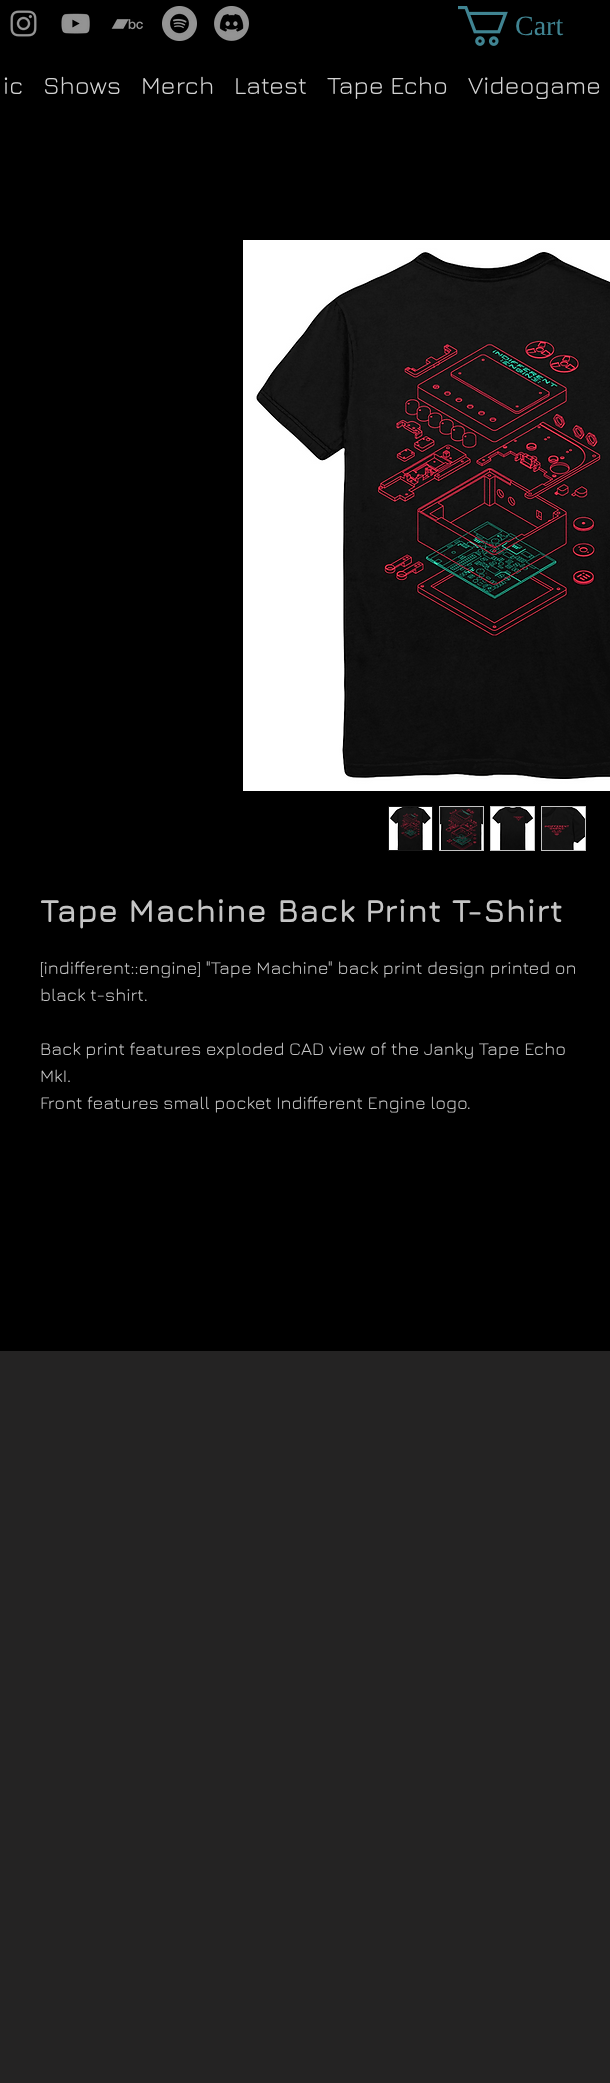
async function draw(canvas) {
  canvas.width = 610;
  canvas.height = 2083;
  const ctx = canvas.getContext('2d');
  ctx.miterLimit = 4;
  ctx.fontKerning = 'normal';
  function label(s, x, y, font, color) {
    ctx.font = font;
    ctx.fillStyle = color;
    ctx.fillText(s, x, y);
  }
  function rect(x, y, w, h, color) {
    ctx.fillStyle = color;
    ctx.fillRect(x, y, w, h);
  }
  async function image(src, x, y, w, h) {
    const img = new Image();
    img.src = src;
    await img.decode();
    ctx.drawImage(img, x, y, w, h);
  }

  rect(0, 0, 610, 2083, '#000');
  await image('assets/img1.png', 10, 10, 27, 27);
  await image('assets/img2.png', 61, 13, 29, 21);
  await image('assets/img3.png', 111, 19, 32, 11);
  await image('assets/img4.png', 162, 6, 35, 35);
  await image('assets/img5.png', 214, 6, 35, 35);
  await image('assets/img6.png', 458, 6, 50, 40);
  label('Cart', 515, 35, '28px Liberation Serif', '#408492');
  label('ic', 3, 94, '25px Jura', '#d4d4d4');
  label('Shows', 43, 94, '25px Jura', '#d4d4d4');
  label('Merch', 141, 94, '25px Jura', '#d4d4d4');
  label('Latest', 234, 94, '25px Jura', '#d4d4d4');
  label('Tape Echo', 327, 94, '25px Jura', '#d4d4d4');
  label('Videogame', 468, 94, '25px Jura', '#d4d4d4');
  await image('assets/img7.png', 243, 240, 367, 551);
  ctx.strokeStyle = '#181818';
  ctx.strokeRect(388.5, 806.5, 44, 44);
  await image('assets/img8.png', 389, 807, 43, 43);
  ctx.strokeStyle = '#c5c5c5';
  ctx.strokeRect(439.5, 806.5, 44, 44);
  await image('assets/img9.png', 440, 807, 43, 43);
  ctx.strokeRect(490.5, 806.5, 44, 44);
  await image('assets/img10.png', 491, 807, 43, 43);
  ctx.strokeRect(541.5, 806.5, 44, 44);
  await image('assets/img11.png', 542, 807, 43, 43);
  label('Tape Machine Back Print T-Shirt', 40, 922, 'bold 32px Jura', '#c5c5c5');
  label('[indifferent::engine] "Tape Machine" back print design printed on', 40, 974, '18px Jura', '#c5c5c5');
  label('black t-shirt.', 40, 1001, '18px Jura', '#c5c5c5');
  label('Back print features exploded CAD view of the Janky Tape Echo', 40, 1055, '18px Jura', '#c5c5c5');
  label('MkI.', 40, 1082, '18px Jura', '#c5c5c5');
  label('Front features small pocket Indifferent Engine logo.', 40, 1109, '18px Jura', '#c5c5c5');
  rect(0, 1351, 610, 732, '#242323');
}

draw(document.querySelector('canvas'));
